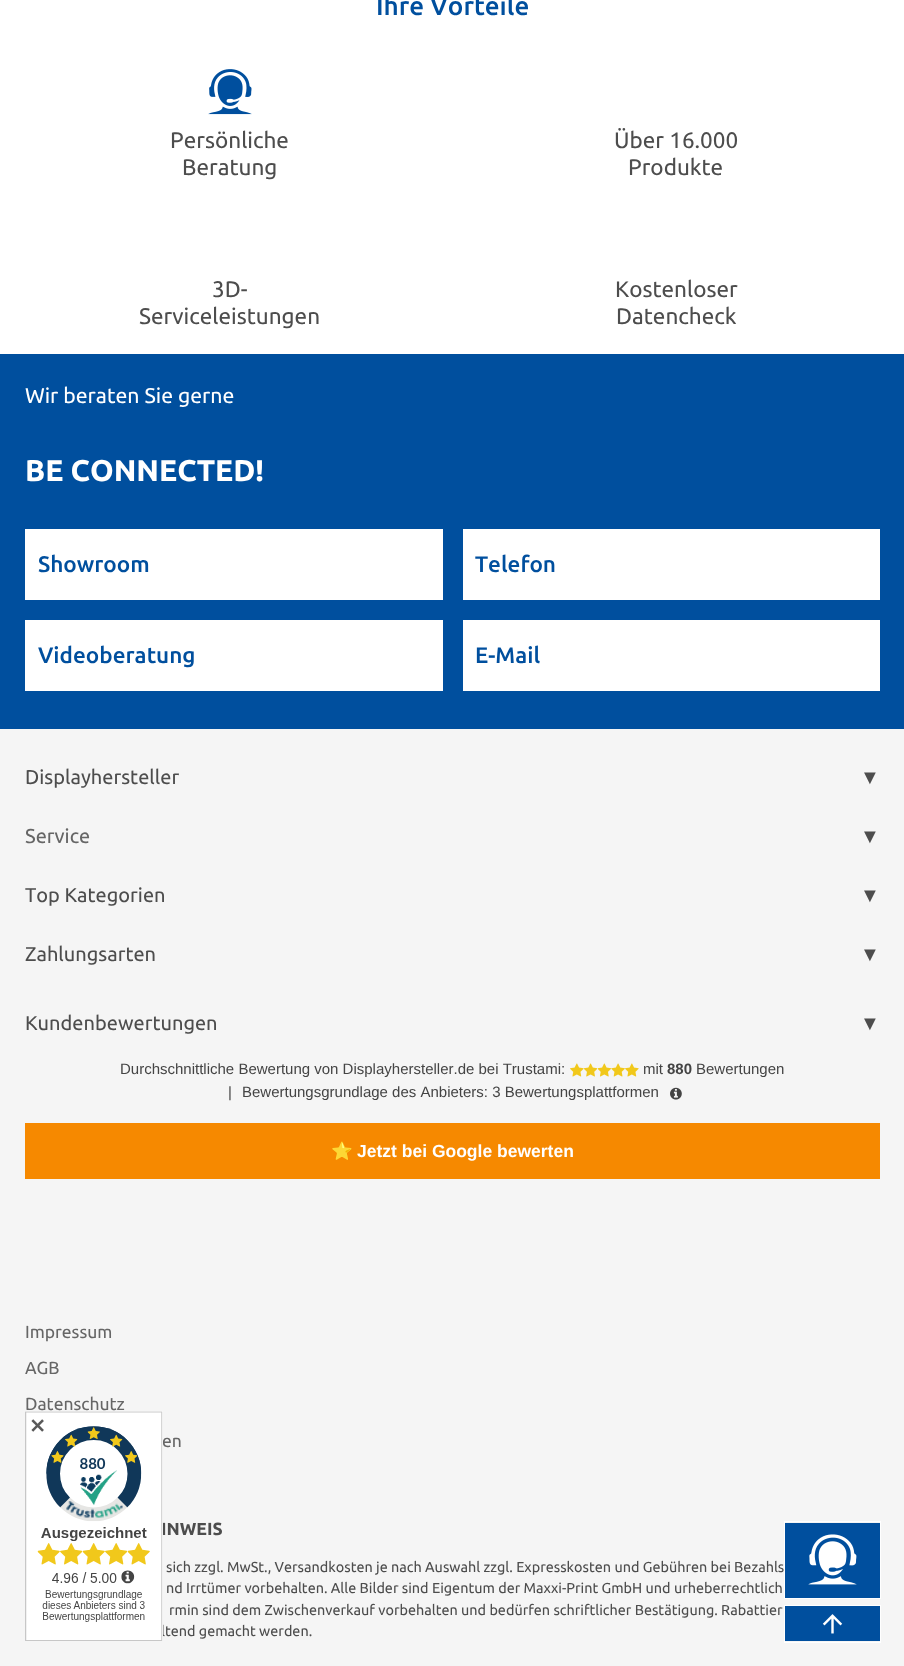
async function draw(canvas) {
  canvas.width = 904;
  canvas.height = 1666;
  const ctx = canvas.getContext('2d');
  ctx.miterLimit = 4;
  ctx.fontKerning = 'none';
  function label(s, x, y, font, color) {
    ctx.font = font;
    ctx.fillStyle = color;
    ctx.fillText(s, x, y);
  }
  function rect(x, y, w, h, color) {
    ctx.fillStyle = color;
    ctx.fillRect(x, y, w, h);
  }
  async function image(src, x, y, w, h) {
    const img = new Image();
    img.src = src;
    await img.decode();
    ctx.drawImage(img, x, y, w, h);
  }

  rect(0, 0, 904, 1666, '#f5f5f5');
  rect(0, 0, 904, 354, '#fff');
  label('Ihre Vorteile', 376, 15, '500 26px Ubuntu', '#004f9e');
  await image('assets/img1.png', 208, 69, 44, 46);
  label('Persönliche', 170, 148, '22.5px Ubuntu', '#4d4d4d');
  label('Beratung', 182, 175, '22.5px Ubuntu', '#4d4d4d');
  label('Über 16.000', 614, 148, '22.5px Ubuntu', '#4d4d4d');
  label('Produkte', 628, 175, '22.5px Ubuntu', '#4d4d4d');
  label('3D-', 212, 297, '22.5px Ubuntu', '#4d4d4d');
  label('Serviceleistungen', 139, 324, '22.5px Ubuntu', '#4d4d4d');
  label('Kostenloser', 615, 297, '22.5px Ubuntu', '#4d4d4d');
  label('Datencheck', 616, 324, '22.5px Ubuntu', '#4d4d4d');
  rect(0, 354, 904, 375, '#004f9e');
  label('Wir beraten Sie gerne', 25, 403, '21.25px Ubuntu', '#fff');
  label('BE CONNECTED!', 25, 481, 'bold 30px Ubuntu', '#fff');
  rect(25, 529, 418, 71, '#fff');
  label('Showroom', 38, 572, '500 22.5px Ubuntu', '#004f9e');
  rect(463, 529, 417, 71, '#fff');
  label('Telefon', 475, 572, '500 22.5px Ubuntu', '#004f9e');
  rect(25, 620, 418, 71, '#fff');
  label('Videoberatung', 38, 663, '500 22.5px Ubuntu', '#004f9e');
  rect(463, 620, 417, 71, '#fff');
  label('E-Mail', 475, 663, '500 22.5px Ubuntu', '#004f9e');
  label('Displayhersteller', 25, 784, '20px Ubuntu', '#4d4d4d');
  label('▼', 860, 784, '20px Liberation Sans', '#4d4d4d');
  label('Service', 25, 843, '20px Ubuntu', '#666');
  label('▼', 860, 843, '20px Liberation Sans', '#4d4d4d');
  label('Top Kategorien', 25, 902, '20px Ubuntu', '#4d4d4d');
  label('▼', 860, 902, '20px Liberation Sans', '#4d4d4d');
  label('Zahlungsarten', 25, 961, '20px Ubuntu', '#4d4d4d');
  label('▼', 860, 961, '20px Liberation Sans', '#4d4d4d');
  label('Kundenbewertungen', 25, 1030, '20px Ubuntu', '#4d4d4d');
  label('▼', 860, 1030, '20px Liberation Sans', '#4d4d4d');
  label('Durchschnittliche Bewertung von Displayhersteller.de bei Trustami:', 120, 1074, '15px Liberation Sans', '#444');
  await image('assets/img2.png', 570, 1063, 14, 14);
  await image('assets/img3.png', 584, 1063, 14, 14);
  await image('assets/img4.png', 598, 1063, 13, 14);
  await image('assets/img5.png', 611, 1063, 14, 14);
  await image('assets/img2.png', 625, 1063, 14, 14);
  label('mit', 643, 1074, '15px Liberation Sans', '#444');
  label('880', 667, 1074, 'bold 15px Liberation Sans', '#444');
  label('Bewertungen', 696, 1074, '15px Liberation Sans', '#444');
  label('|', 228, 1097, '15px Liberation Sans', '#444');
  label('Bewertungsgrundlage des Anbieters: 3 Bewertungsplattformen', 242, 1097, '15px Liberation Sans', '#444');
  await image('assets/img6.png', 670, 1087, 12, 13);
  rect(25, 1123, 855, 56, '#f68900');
  label('⭐', 331, 1157, 'bold 17.5px Noto Color Emoji', '#fff');
  label('Jetzt bei Google bewerten', 357, 1157, 'bold 17.5px Liberation Sans', '#fff');
  label('Impressum', 25, 1338, '17.5px Ubuntu', '#666');
  label('AGB', 25, 1374, '17.5px Ubuntu', '#666');
  label('Datenschutz', 25, 1410, '17.5px Ubuntu', '#666');
  label('en', 162, 1447, '17.5px Ubuntu', '#666');
  label('INWEIS', 161, 1535, 'bold 17.5px Ubuntu', '#4d4d4d');
  label('sich zzgl. MwSt., Versandkosten je nach Auswahl zzgl. Expresskosten und Gebühren bei Bezahls', 166, 1572, '14.4px Ubuntu', '#4d4d4d');
  label('nd Irrtümer vorbehalten. Alle Bilder sind Eigentum der Maxxi-Print GmbH und urheberrechtlich', 166, 1593, '14.4px Ubuntu', '#4d4d4d');
  label('rmin sind dem Zwischenverkauf vorbehalten und bedürfen schriftlicher Bestätigung. Rabattier', 169, 1615, '14.4px Ubuntu', '#4d4d4d');
  label('ltend gemacht werden.', 161, 1636, '14.4px Ubuntu', '#4d4d4d');
  rect(785, 1523, 95, 75, '#004f9e');
  await image('assets/img7.png', 808, 1534, 49, 51);
  ctx.strokeStyle = '#fff';
  ctx.strokeRect(784.5, 1521.5, 96, 77);
  rect(785, 1606, 95, 35, '#004f9e');
  await image('assets/img8.png', 822, 1614, 21, 20);
  ctx.strokeRect(784.5, 1605.5, 96, 37);
  await image('assets/img9.png', 25, 1411, 138, 230);
  label('✕', 29, 1433, 'bold 20px DejaVu Sans', '#595959');
}

draw(document.querySelector('canvas'));
